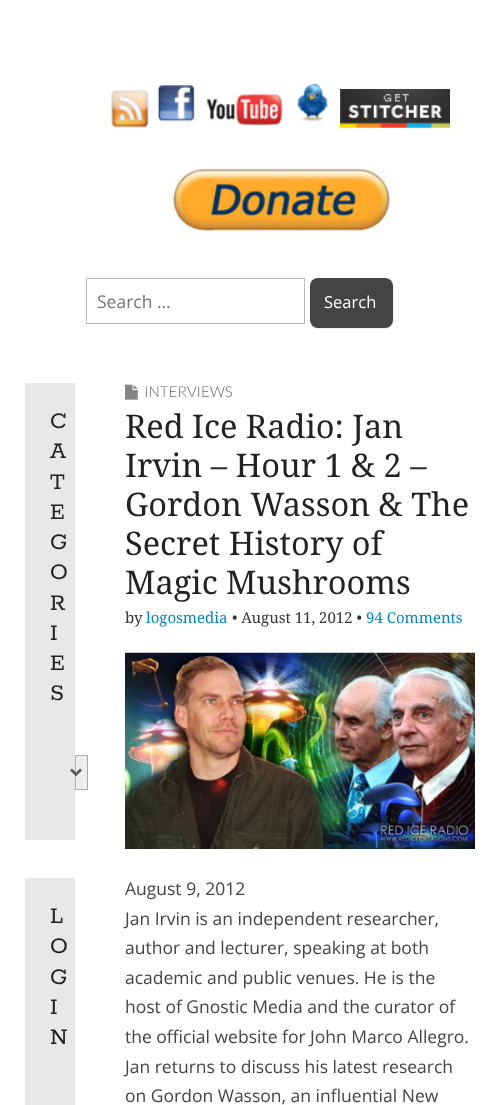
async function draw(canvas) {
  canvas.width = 499;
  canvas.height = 1105;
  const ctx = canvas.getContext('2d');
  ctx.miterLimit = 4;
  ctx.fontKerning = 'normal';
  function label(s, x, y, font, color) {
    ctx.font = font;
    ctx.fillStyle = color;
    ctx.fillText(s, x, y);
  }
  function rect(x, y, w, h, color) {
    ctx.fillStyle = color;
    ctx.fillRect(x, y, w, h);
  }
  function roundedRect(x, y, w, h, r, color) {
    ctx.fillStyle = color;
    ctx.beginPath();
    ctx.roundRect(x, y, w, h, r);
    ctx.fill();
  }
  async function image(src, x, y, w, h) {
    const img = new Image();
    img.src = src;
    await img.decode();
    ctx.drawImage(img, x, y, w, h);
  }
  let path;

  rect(0, 0, 499, 1105, '#fff');
  await image('assets/img1.png', 111, 90, 38, 38);
  await image('assets/img2.png', 157, 85, 38, 37);
  await image('assets/img3.png', 206, 93, 77, 34);
  await image('assets/img4.png', 297, 84, 31, 38);
  await image('assets/img5.png', 340, 89, 110, 39);
  await image('assets/img6.png', 172, 168, 218, 64);
  ctx.strokeStyle = '#bbb';
  ctx.strokeRect(86.5, 278.5, 218, 45);
  label('Search …', 97, 308, '17.5px Open Sans', '#757575');
  ctx.fillStyle = '#eee';
  path = new Path2D('M312 325C314 328 316 329 319 329H386C390 329 394 325 394 321V287C394 285 393 283 391 281C392 282 392 284 392 285V320C392 324 389 328 385 328H318C316 328 314 327 312 325Z');
  ctx.fill(path);
  roundedRect(310, 278, 83, 50, 8, '#444');
  label('Search', 324, 308, '16.5px Open Sans', '#fff');
  rect(25, 383, 50, 457, '#e8e8e8');
  label('C', 50, 428, '600 25px Rokkitt', '#222');
  label('A', 50, 458, '600 25px Rokkitt', '#222');
  label('T', 50, 489, '600 25px Rokkitt', '#222');
  label('E', 50, 519, '600 25px Rokkitt', '#222');
  label('G', 50, 549, '600 25px Rokkitt', '#222');
  label('O', 50, 579, '600 25px Rokkitt', '#222');
  label('R', 50, 610, '600 25px Rokkitt', '#222');
  label('I', 50, 640, '600 25px Rokkitt', '#222');
  label('E', 50, 670, '600 25px Rokkitt', '#222');
  label('S', 50, 700, '600 25px Rokkitt', '#222');
  ctx.fillStyle = '#efefef';
  ctx.beginPath();
  ctx.rect(75.5, 755.5, 12, 34);
  ctx.fill();
  ctx.strokeStyle = '#aaa';
  ctx.stroke();
  path = new Path2D('M71 769.5L76 774.5L81 769.5');
  ctx.strokeStyle = '#555';
  ctx.lineWidth = 2.5;
  ctx.stroke(path);
  rect(25, 878, 50, 227, '#e8e8e8');
  label('L', 50, 923, '600 25px Rokkitt', '#222');
  label('O', 50, 953, '600 25px Rokkitt', '#222');
  label('G', 50, 984, '600 25px Rokkitt', '#222');
  label('I', 50, 1014, '600 25px Rokkitt', '#222');
  label('N', 50, 1044, '600 25px Rokkitt', '#222');
  await image('assets/img7.png', 125, 384, 13, 16);
  label('INTERVIEWS', 144, 397, '300 15px Lato', '#666');
  label('Red Ice Radio: Jan', 125, 438, '32.5px Droid Serif', '#222');
  label('Irvin – Hour 1 & 2 –', 125, 477, '32.5px Droid Serif', '#222');
  label('Gordon Wasson & The', 125, 516, '32.5px Droid Serif', '#222');
  label('Secret History of', 125, 555, '32.5px Droid Serif', '#222');
  label('Magic Mushrooms', 125, 594, '32.5px Droid Serif', '#222');
  label('by', 125, 623, '15px Droid Serif', '#333');
  label('logosmedia', 146, 623, '15px Droid Serif', '#0089c4');
  label('• August 11, 2012 •', 232, 623, '15px Droid Serif', '#333');
  label('94 Comments', 366, 623, '15px Droid Serif', '#0089c4');
  await image('assets/img8.png', 125, 652, 350, 197);
  label('August 9, 2012', 125, 895, '17.5px Open Sans', '#444');
  label('Jan Irvin is an independent researcher,', 125, 925, '17.5px Open Sans', '#444');
  label('author and lecturer, speaking at both', 125, 954, '17.5px Open Sans', '#444');
  label('academic and public venues. He is the', 125, 984, '17.5px Open Sans', '#444');
  label('host of Gnostic Media and the curator of', 125, 1013, '17.5px Open Sans', '#444');
  label('the official website for John Marco Allegro.', 125, 1043, '17.5px Open Sans', '#444');
  label('Jan returns to discuss his latest research', 125, 1073, '17.5px Open Sans', '#444');
  label('on Gordon Wasson, an influential New', 125, 1102, '17.5px Open Sans', '#444');
}

draw(document.querySelector('canvas'));
